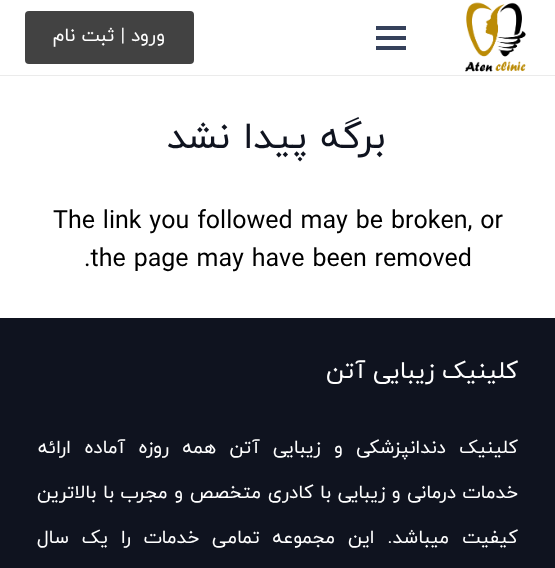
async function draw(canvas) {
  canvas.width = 555;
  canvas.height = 568;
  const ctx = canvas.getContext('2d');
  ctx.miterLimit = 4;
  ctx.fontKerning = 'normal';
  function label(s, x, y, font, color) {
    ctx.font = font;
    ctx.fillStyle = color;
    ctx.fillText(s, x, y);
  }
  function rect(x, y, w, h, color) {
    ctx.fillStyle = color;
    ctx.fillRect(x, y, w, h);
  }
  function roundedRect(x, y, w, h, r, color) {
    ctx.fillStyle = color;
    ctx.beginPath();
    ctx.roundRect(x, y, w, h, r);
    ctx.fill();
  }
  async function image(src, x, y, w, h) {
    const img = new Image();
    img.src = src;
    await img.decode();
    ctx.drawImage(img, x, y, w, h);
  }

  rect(0, 0, 555, 568, '#fff');
  rect(0, 75, 555, 1, '#ebebeb');
  await image('assets/img1.png', 465, 2, 61, 70);
  rect(376, 36, 30, 4, '#35415b');
  rect(376, 26, 30, 4, '#35415b');
  rect(376, 46, 30, 4, '#35415b');
  roundedRect(25, 11, 169, 53, 4, '#424242');
  ctx.direction = 'rtl';
  label('ورود | ثبت نام', 165, 41, '18.75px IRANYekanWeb', '#fff');
  ctx.letterSpacing = '-0.4px';
  ctx.wordSpacing = '2px';
  label('برگه پیدا نشد', 385, 148, '37.5px IRANYekanWeb', '#0f131f');
  ctx.letterSpacing = '0px';
  ctx.wordSpacing = '0px';
  ctx.direction = 'ltr';
  label('The link you followed may be broken, or', 53, 228, '25px IRANYekanWeb', '#000');
  label('.the page may have been removed', 84, 266, '25px IRANYekanWeb', '#000');
  rect(0, 318, 555, 250, '#0f131f');
  ctx.direction = 'rtl';
  label('کلینیک زیبایی آتن', 518, 378, '24.25px IRANYekanWeb', '#fff');
  ctx.wordSpacing = '7.5px';
  label('کلینیک دندانپزشکی و زیبایی آتن همه روزه آماده ارائه', 518, 453, '18.75px IRANYekanWeb', '#fff');
  ctx.wordSpacing = '0.75px';
  label('خدمات درمانی و زیبایی با کادری متخصص و مجرب با بالاترین', 518, 498, '18.75px IRANYekanWeb', '#fff');
  ctx.wordSpacing = '7px';
  label('کیفیت میباشد. این مجموعه تمامی خدمات را یک سال', 518, 543, '18.75px IRANYekanWeb', '#fff');
}

draw(document.querySelector('canvas'));
